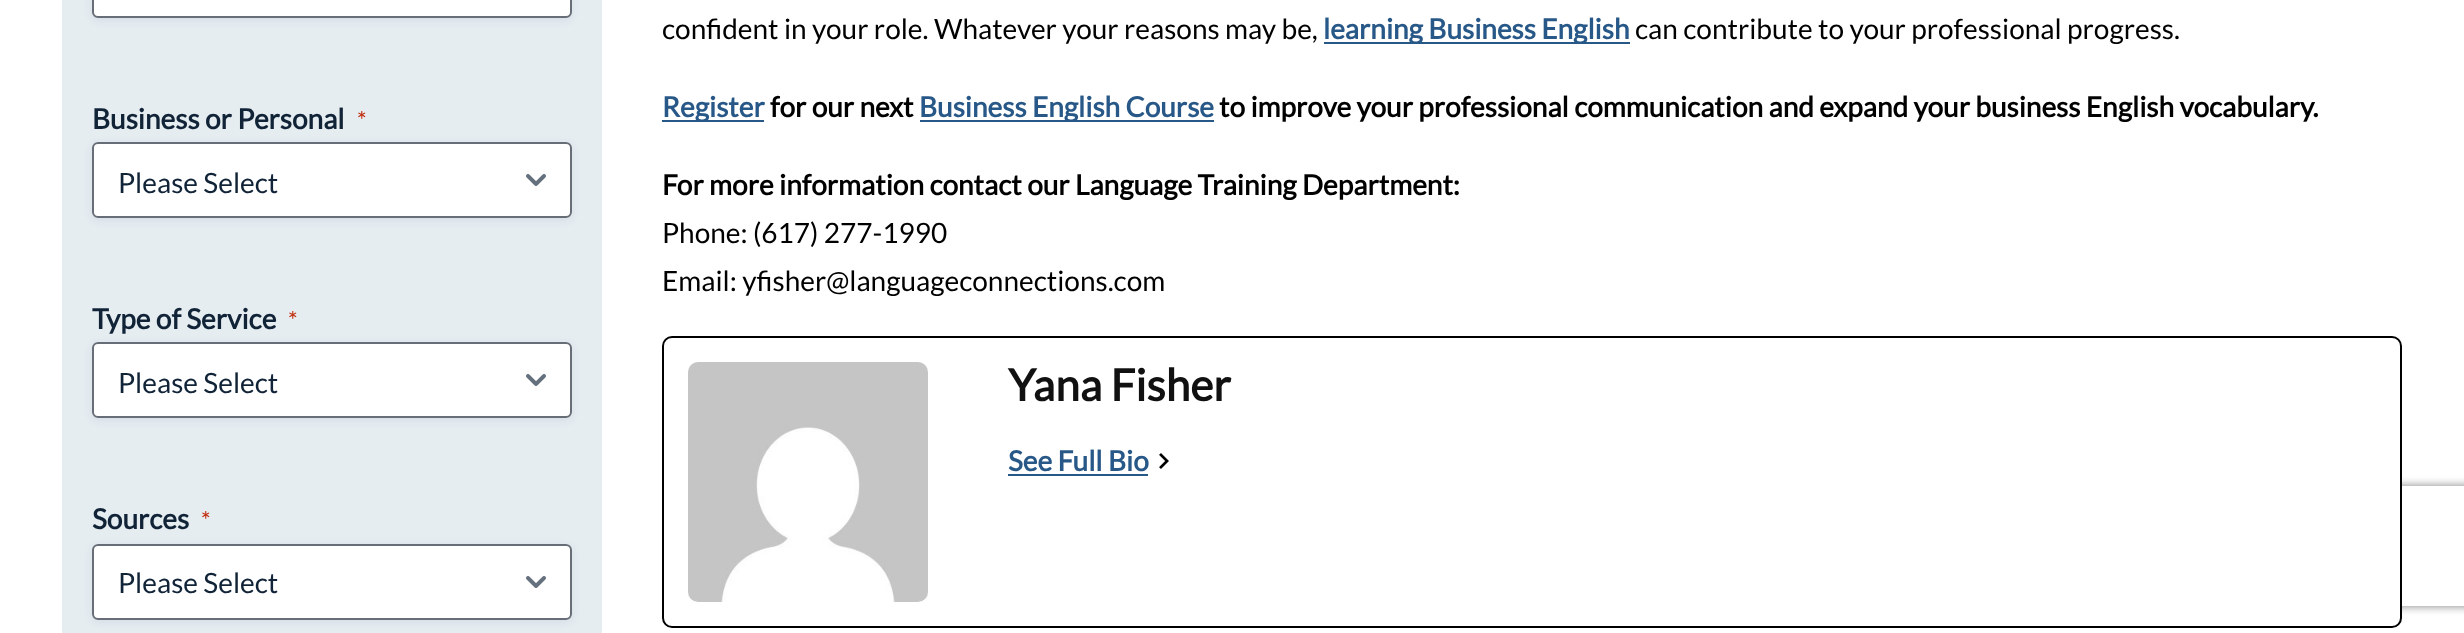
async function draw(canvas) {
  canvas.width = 2464;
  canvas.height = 633;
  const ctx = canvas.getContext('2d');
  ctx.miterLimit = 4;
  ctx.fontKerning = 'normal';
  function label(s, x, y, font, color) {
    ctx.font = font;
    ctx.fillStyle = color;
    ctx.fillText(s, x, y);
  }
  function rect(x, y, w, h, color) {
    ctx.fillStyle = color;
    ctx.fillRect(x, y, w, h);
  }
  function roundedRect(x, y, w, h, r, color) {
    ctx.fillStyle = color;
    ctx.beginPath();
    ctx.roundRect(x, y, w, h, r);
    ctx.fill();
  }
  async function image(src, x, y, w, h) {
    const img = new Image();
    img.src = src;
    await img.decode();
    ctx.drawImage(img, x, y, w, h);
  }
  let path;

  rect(0, 0, 2464, 633, '#fff');
  rect(62, 0, 540, 633, '#e6edf1');
  ctx.fillStyle = '#12196114';
  ctx.filter = 'blur(4px)';
  ctx.beginPath();
  ctx.roundRect(92, -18, 480, 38, 6);
  ctx.fill();
  ctx.filter = 'none';
  ctx.fillStyle = '#fff';
  ctx.beginPath();
  ctx.roundRect(93, -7, 478, 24, 5);
  ctx.fill();
  ctx.strokeStyle = '#686e77';
  ctx.lineWidth = 2;
  ctx.stroke();
  label('Business or Personal', 92, 129, 'bold 28px Lato', '#112337');
  label('*', 357, 129, '24px Lato', '#c02b0a');
  ctx.fillStyle = '#12196114';
  ctx.filter = 'blur(4px)';
  ctx.beginPath();
  ctx.roundRect(92, 144, 480, 76, 6);
  ctx.fill();
  ctx.filter = 'none';
  roundedRect(92, 142, 480, 76, 6, '#fff');
  await image('assets/img1.png', 526, 174, 20, 12);
  ctx.beginPath();
  ctx.roundRect(93, 143, 478, 74, 5);
  ctx.stroke();
  label('Please Select', 118, 193, '28px Lato', '#112337');
  ctx.fillStyle = '#12196114';
  ctx.filter = 'blur(4px)';
  ctx.beginPath();
  ctx.roundRect(92, 344, 480, 76, 6);
  ctx.fill();
  ctx.filter = 'none';
  label('Type of Service', 92, 329, 'bold 28px Lato', '#112337');
  label('*', 288, 329, '24px Lato', '#c02b0a');
  roundedRect(92, 342, 480, 76, 6, '#fff');
  await image('assets/img1.png', 526, 374, 20, 12);
  ctx.beginPath();
  ctx.roundRect(93, 343, 478, 74, 5);
  ctx.stroke();
  label('Please Select', 118, 393, '28px Lato', '#112337');
  label('Sources', 92, 529, 'bold 28px Lato', '#112337');
  label('*', 201, 529, '24px Lato', '#c02b0a');
  ctx.fillStyle = '#12196114';
  ctx.filter = 'blur(4px)';
  ctx.beginPath();
  ctx.roundRect(92, 546, 480, 76, 6);
  ctx.fill();
  ctx.filter = 'none';
  roundedRect(92, 544, 480, 76, 6, '#fff');
  await image('assets/img1.png', 526, 576, 20, 12);
  ctx.beginPath();
  ctx.roundRect(93, 545, 478, 74, 5);
  ctx.stroke();
  label('Please Select', 118, 593, '28px Lato', '#112337');
  ctx.save();
  path = new Path2D('M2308 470H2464V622H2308ZM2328 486H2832C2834 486 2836 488 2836 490V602C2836 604 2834 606 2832 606H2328C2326 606 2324 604 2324 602V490C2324 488 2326 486 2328 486Z');
  ctx.clip(path, 'evenodd');
  ctx.fillStyle = '#808080';
  ctx.filter = 'blur(5px)';
  ctx.beginPath();
  ctx.roundRect(2324, 486, 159, 120, 4);
  ctx.fill();
  ctx.filter = 'none';
  ctx.restore();
  rect(2314, 476, 88, 140, '#fff');
  label('confident in your role. Whatever your reasons may be,', 662, 39, '28px Lato', '#000');
  rect(1324, 42, 306, 2, '#285888');
  label('learning Business English', 1323, 39, 'bold 28px Lato', '#285888');
  label('can contribute to your professional progress.', 1635, 39, '28px Lato', '#000');
  rect(662, 120, 102, 2, '#285888');
  label('Register', 662, 117, 'bold 28px Lato', '#285888');
  label('for our next', 770, 117, 'bold 28px Lato', '#000');
  rect(920, 120, 294, 2, '#285888');
  label('Business English Course', 919, 117, 'bold 28px Lato', '#285888');
  label('to improve your professional communication and expand your business English vocabulary.', 1219, 117, 'bold 28px Lato', '#000');
  label('For more information contact our Language Training Department:', 662, 195, 'bold 28px Lato', '#000');
  label('Phone: (617) 277-1990', 662, 243, '28px Lato', '#000');
  label('Email: yfisher@languageconnections.com', 662, 291, '28px Lato', '#000');
  ctx.beginPath();
  ctx.roundRect(663, 337, 1738, 290, 9);
  ctx.strokeStyle = '#000';
  ctx.stroke();
  await image('assets/img2.png', 688, 362, 240, 240);
  label('Yana Fisher', 1008, 401, 'bold 44px Lato', '#111');
  label('See Full Bio', 1008, 471, 'bold 28px Lato', '#285888');
  rect(1008, 474, 140, 2, '#285888');
  await image('assets/img3.png', 1159, 453, 10, 16);
}

draw(document.querySelector('canvas'));
